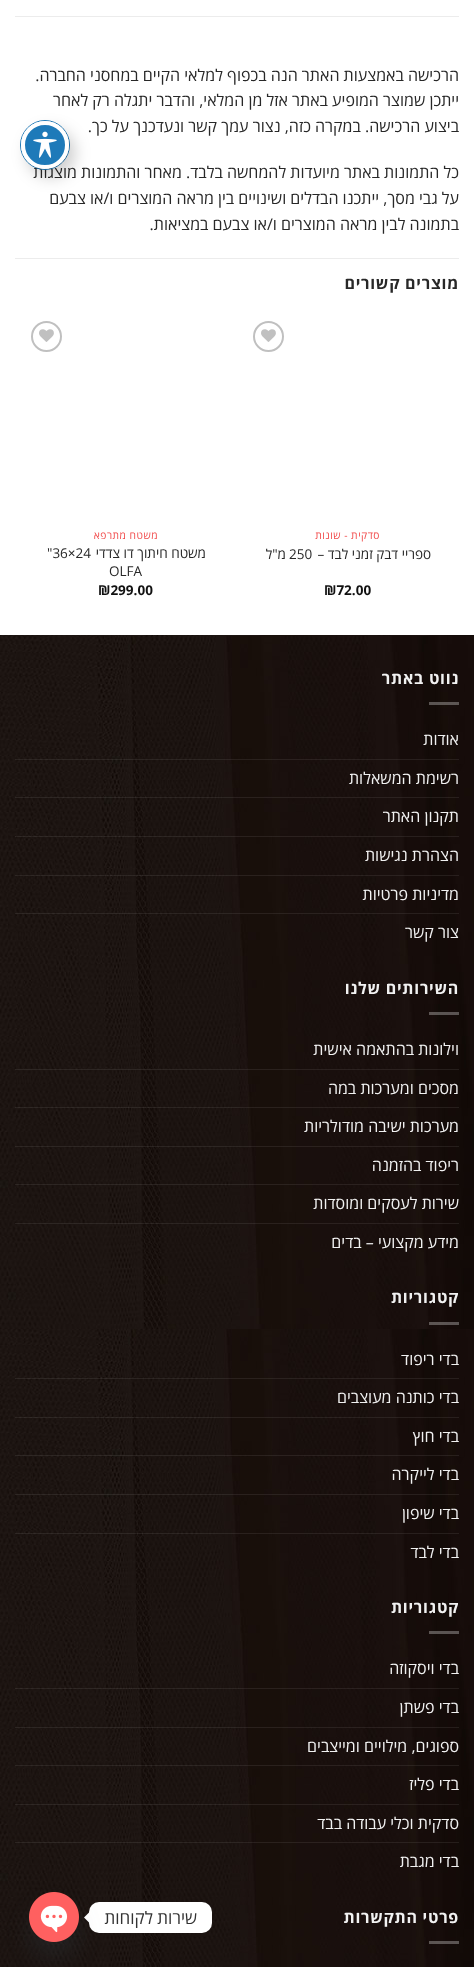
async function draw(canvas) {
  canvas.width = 474;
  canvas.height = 1967;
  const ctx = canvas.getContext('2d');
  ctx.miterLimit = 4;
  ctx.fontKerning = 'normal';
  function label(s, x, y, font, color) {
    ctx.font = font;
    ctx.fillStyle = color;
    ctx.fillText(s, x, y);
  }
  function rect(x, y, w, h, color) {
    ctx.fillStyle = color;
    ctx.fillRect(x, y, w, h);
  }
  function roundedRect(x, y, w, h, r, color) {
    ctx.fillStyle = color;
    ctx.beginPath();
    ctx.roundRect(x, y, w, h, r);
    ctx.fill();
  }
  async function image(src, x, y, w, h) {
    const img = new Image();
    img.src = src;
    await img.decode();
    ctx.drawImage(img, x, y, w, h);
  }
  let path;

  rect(0, 0, 474, 1967, '#fff');
  rect(15, 16, 444, 1, '#ececec');
  ctx.direction = 'rtl';
  label('הרכישה באמצעות האתר הנה בכפוף למלאי הקיים במחסני החברה.', 459, 81, '16px Open Sans', '#282828');
  label('ייתכן שמוצר המופיע באתר אזל מן המלאי, והדבר יתגלה רק לאחר', 459, 106, '16px Open Sans', '#282828');
  label('ביצוע הרכישה. במקרה כזה, נצור עמך קשר ונעדכנך על כך.', 459, 132, '16px Open Sans', '#282828');
  label('כל התמונות באתר מיועדות להמחשה בלבד. מאחר והתמונות מוצגות', 459, 178, '16px Open Sans', '#282828');
  label('על גבי מסך, ייתכנו הבדלים ושינויים בין מראה המוצרים ו/או צבעם', 459, 204, '16px Open Sans', '#282828');
  label('בתמונה לבין מראה המוצרים ו/או צבעם במציאות.', 459, 230, '16px Open Sans', '#282828');
  rect(15, 258, 444, 1, '#ececec');
  ctx.letterSpacing = '0.75px';
  label('מוצרים קשורים', 459, 289, 'bold 16px Open Sans', '#282828');
  ctx.beginPath();
  ctx.arc(268.5, 336.5, 14.5, 0, 2 * Math.PI);
  ctx.strokeStyle = '#c0c0c0';
  ctx.lineWidth = 2;
  ctx.stroke();
  await image('assets/img1.png', 261, 329, 15, 13);
  ctx.letterSpacing = '0.5px';
  label('סדקית - שונות', 380, 539, '10.25px Open Sans', '#f14949');
  ctx.letterSpacing = '0px';
  label('ספריי דבק זמני לבד –', 431, 559, '13.5px Open Sans', '#282828');
  ctx.direction = 'ltr';
  label('250', 289, 559, '13.5px Open Sans', '#282828');
  ctx.direction = 'rtl';
  label('מ"ל', 286, 559, '13.5px Open Sans', '#282828');
  ctx.direction = 'ltr';
  label('₪72.00', 324, 595, 'bold 13.5px Open Sans', '#111');
  ctx.beginPath();
  ctx.arc(46.5, 336.5, 14.5, 0, 2 * Math.PI);
  ctx.stroke();
  await image('assets/img1.png', 39, 329, 15, 13);
  ctx.letterSpacing = '0.5px';
  ctx.direction = 'rtl';
  label('משטח מתרפא', 158, 539, '10.25px Open Sans', '#f14949');
  ctx.letterSpacing = '0px';
  label('משטח חיתוך דו צדדי', 206, 558, '13.5px Open Sans', '#282828');
  ctx.direction = 'ltr';
  label('"36×24', 47, 558, '13.5px Open Sans', '#282828');
  label('OLFA', 109, 576, '13.5px Open Sans', '#282828');
  label('₪299.00', 98, 595, 'bold 13.5px Open Sans', '#111');
  await image('assets/img2.png', 0, 635, 474, 1332);
  ctx.letterSpacing = '0.75px';
  ctx.direction = 'rtl';
  label('נווט באתר', 459, 684, 'bold 16px Open Sans', '#f1f1f1');
  rect(429, 702, 30, 3, '#ffffff4d');
  ctx.letterSpacing = '0px';
  label('אודות', 459, 745, '16px Open Sans', '#f1f1f1');
  rect(15, 759, 444, 1, '#ffffff14');
  label('רשימת המשאלות', 459, 784, '16px Open Sans', '#f1f1f1');
  rect(15, 797, 444, 1, '#ffffff14');
  label('תקנון האתר', 459, 822, '16px Open Sans', '#f1f1f1');
  rect(15, 836, 444, 1, '#ffffff14');
  label('הצהרת נגישות', 459, 861, '16px Open Sans', '#f1f1f1');
  rect(15, 875, 444, 1, '#ffffff14');
  label('מדיניות פרטיות', 459, 900, '16px Open Sans', '#f1f1f1');
  rect(15, 913, 444, 1, '#ffffff14');
  label('צור קשר', 459, 938, '16px Open Sans', '#f1f1f1');
  ctx.letterSpacing = '0.75px';
  label('השירותים שלנו', 459, 994, 'bold 16px Open Sans', '#f1f1f1');
  rect(429, 1012, 30, 3, '#ffffff4d');
  ctx.letterSpacing = '0px';
  label('וילונות בהתאמה אישית', 459, 1055, '16px Open Sans', '#f1f1f1');
  rect(15, 1069, 444, 1, '#ffffff14');
  label('מסכים ומערכות במה', 459, 1094, '16px Open Sans', '#f1f1f1');
  rect(15, 1107, 444, 1, '#ffffff14');
  label('מערכות ישיבה מודולריות', 459, 1132, '16px Open Sans', '#f1f1f1');
  rect(15, 1146, 444, 1, '#ffffff14');
  label('ריפוד בהזמנה', 459, 1171, '16px Open Sans', '#f1f1f1');
  rect(15, 1184, 444, 1, '#ffffff14');
  label('שירות לעסקים ומוסדות', 459, 1209, '16px Open Sans', '#f1f1f1');
  rect(15, 1223, 444, 1, '#ffffff14');
  label('מידע מקצועי – בדים', 459, 1248, '16px Open Sans', '#f1f1f1');
  ctx.letterSpacing = '0.75px';
  label('קטגוריות', 459, 1303, 'bold 16px Open Sans', '#f1f1f1');
  rect(429, 1322, 30, 3, '#ffffff4d');
  ctx.letterSpacing = '0px';
  label('בדי ריפוד', 459, 1365, '16px Open Sans', '#f1f1f1');
  rect(15, 1378, 444, 1, '#ffffff14');
  label('בדי כותנה מעוצבים', 459, 1403, '16px Open Sans', '#f1f1f1');
  rect(15, 1417, 444, 1, '#ffffff14');
  label('בדי חוץ', 459, 1442, '16px Open Sans', '#f1f1f1');
  rect(15, 1455, 444, 1, '#ffffff14');
  label('בדי לייקרה', 459, 1480, '16px Open Sans', '#f1f1f1');
  rect(15, 1494, 444, 1, '#ffffff14');
  label('בדי שיפון', 459, 1519, '16px Open Sans', '#f1f1f1');
  rect(15, 1533, 444, 1, '#ffffff14');
  label('בדי לבד', 459, 1558, '16px Open Sans', '#f1f1f1');
  ctx.letterSpacing = '0.75px';
  label('קטגוריות', 459, 1613, 'bold 16px Open Sans', '#f1f1f1');
  rect(429, 1631, 30, 3, '#ffffff4d');
  ctx.letterSpacing = '0px';
  label('בדי ויסקוזה', 459, 1674, '16px Open Sans', '#f1f1f1');
  rect(15, 1688, 444, 1, '#ffffff14');
  label('בדי פשתן', 459, 1713, '16px Open Sans', '#f1f1f1');
  rect(15, 1727, 444, 1, '#ffffff14');
  label('ספוגים, מילויים ומייצבים', 459, 1752, '16px Open Sans', '#f1f1f1');
  rect(15, 1765, 444, 1, '#ffffff14');
  label('בדי פליז', 459, 1790, '16px Open Sans', '#f1f1f1');
  rect(15, 1804, 444, 1, '#ffffff14');
  label('סדקית וכלי עבודה בבד', 459, 1829, '16px Open Sans', '#f1f1f1');
  rect(15, 1842, 444, 1, '#ffffff14');
  label('בדי מגבת', 459, 1867, '16px Open Sans', '#f1f1f1');
  ctx.letterSpacing = '0.75px';
  label('פרטי התקשרות', 459, 1923, 'bold 16px Open Sans', '#f1f1f1');
  rect(429, 1941, 30, 3, '#ffffff4d');
  ctx.beginPath();
  ctx.arc(45, 145, 24.5, 0, 2 * Math.PI);
  ctx.strokeStyle = '#1e7ab9';
  ctx.lineWidth = 1;
  ctx.stroke();
  ctx.fillStyle = '#00000033';
  ctx.filter = 'blur(8px)';
  ctx.beginPath();
  ctx.roundRect(27, 129, 48, 48, 24);
  ctx.fill();
  ctx.filter = 'none';
  ctx.fillStyle = '#1e7ab9';
  ctx.beginPath();
  ctx.arc(45, 145, 22, 0, 2 * Math.PI);
  ctx.fill();
  ctx.strokeStyle = '#fff';
  ctx.lineWidth = 4;
  ctx.stroke();
  await image('assets/img3.png', 33, 131, 24, 27);
  roundedRect(89, 1902, 123, 31, 10, '#fff');
  ctx.letterSpacing = '0px';
  label('שירות לקוחות', 197, 1924, '17px Open Sans', '#333');
  ctx.fillStyle = '#fff';
  path = new Path2D('M89 1912.5V1922.5L84 1917.5Z');
  ctx.fill(path);
  ctx.fillStyle = '#49687e29';
  ctx.filter = 'blur(12px)';
  ctx.beginPath();
  ctx.roundRect(29, 1908, 50, 50, 25);
  ctx.fill();
  ctx.filter = 'none';
  await image('assets/img4.png', 29, 1892, 50, 50);
}

draw(document.querySelector('canvas'));
